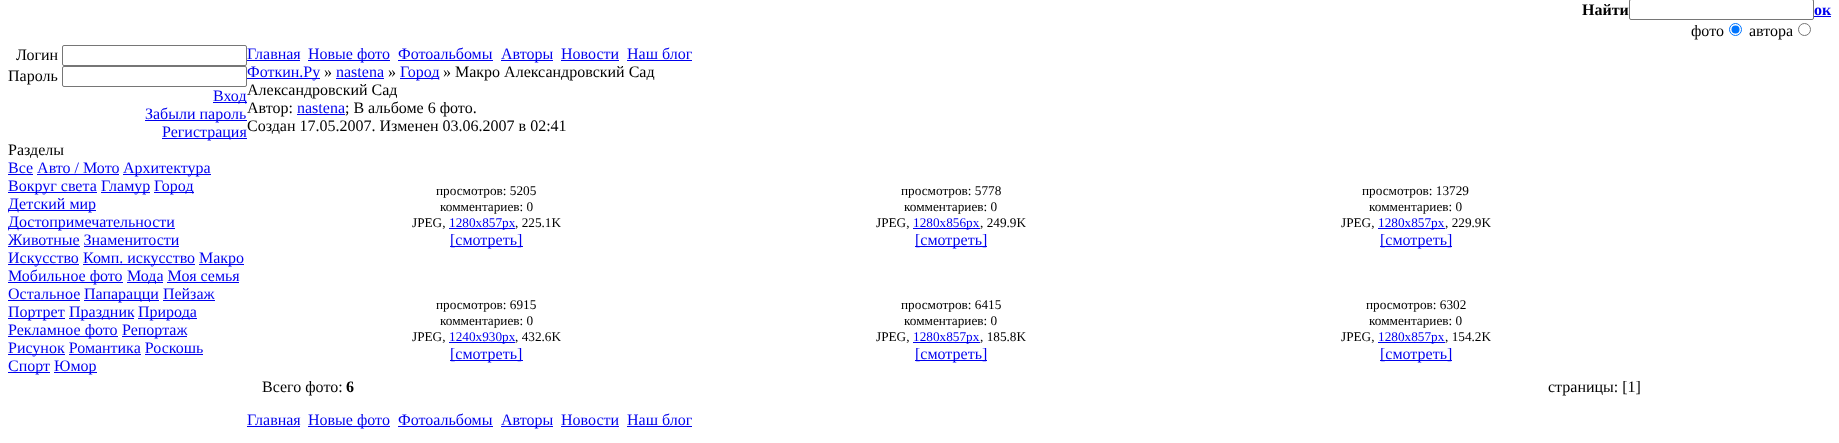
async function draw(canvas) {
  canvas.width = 1839;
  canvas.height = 443;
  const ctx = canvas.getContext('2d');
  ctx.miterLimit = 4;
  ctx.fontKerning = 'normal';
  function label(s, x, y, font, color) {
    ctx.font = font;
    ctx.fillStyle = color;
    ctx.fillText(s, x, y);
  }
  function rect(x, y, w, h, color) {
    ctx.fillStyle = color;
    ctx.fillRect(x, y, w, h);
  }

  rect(0, 0, 1839, 443, '#fff');
  label('Найти', 1582, 15, 'bold 16px Liberation Serif', '#000');
  ctx.beginPath();
  ctx.roundRect(1629.5, -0.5, 184, 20, 1.5);
  ctx.strokeStyle = '#767676';
  ctx.stroke();
  label('ок', 1814, 15, 'bold 16px Liberation Serif', '#00e');
  rect(1814, 16, 17, 1, '#00e');
  label('фото', 1691, 36, '16px Liberation Serif', '#000');
  ctx.beginPath();
  ctx.arc(1735.5, 29.5, 6, 0, 2 * Math.PI);
  ctx.strokeStyle = '#0075ff';
  ctx.stroke();
  ctx.fillStyle = '#0075ff';
  ctx.beginPath();
  ctx.arc(1735.5, 29.5, 4, 0, 2 * Math.PI);
  ctx.fill();
  label('автора', 1749, 36, '16px Liberation Serif', '#000');
  ctx.beginPath();
  ctx.arc(1804.5, 29.5, 6, 0, 2 * Math.PI);
  ctx.strokeStyle = '#767676';
  ctx.stroke();
  label('Логин', 16, 60, '16px Liberation Serif', '#000');
  ctx.beginPath();
  ctx.roundRect(62.5, 45.5, 184, 20, 1.5);
  ctx.stroke();
  label('Пароль', 8, 81, '16px Liberation Serif', '#000');
  ctx.beginPath();
  ctx.roundRect(62.5, 66.5, 184, 20, 1.5);
  ctx.stroke();
  rect(213, 102, 34, 1, '#00e');
  label('Вход', 213, 101, '16px Liberation Serif', '#00e');
  rect(145, 120, 102, 1, '#00e');
  label('Забыли пароль', 145, 119, '16px Liberation Serif', '#00e');
  rect(162, 138, 85, 1, '#00e');
  label('Регистрация', 162, 137, '16px Liberation Serif', '#00e');
  label('Разделы', 8, 155, '16px Liberation Serif', '#000');
  label('Все Авто / Мото', 8, 173, '16px Liberation Serif', '#00e');
  rect(8, 174, 25, 1, '#00e');
  rect(123, 174, 88, 1, '#00e');
  label('Архитектура', 123, 173, '16px Liberation Serif', '#00e');
  rect(37, 174, 82, 1, '#00e');
  rect(8, 192, 89, 1, '#00e');
  label('Вокруг света', 8, 191, '16px Liberation Serif', '#00e');
  rect(101, 192, 49, 1, '#00e');
  label('Гламур', 101, 191, '16px Liberation Serif', '#00e');
  rect(154, 192, 40, 1, '#00e');
  label('Город', 154, 191, '16px Liberation Serif', '#00e');
  rect(8, 210, 88, 1, '#00e');
  label('Детский мир', 8, 209, '16px Liberation Serif', '#00e');
  rect(8, 228, 167, 1, '#00e');
  label('Достопримечательности', 8, 227, '16px Liberation Serif', '#00e');
  label('Животные Знаменитости', 8, 245, '16px Liberation Serif', '#00e');
  rect(8, 246, 72, 1, '#00e');
  rect(84, 246, 95, 1, '#00e');
  rect(8, 264, 71, 1, '#00e');
  label('Искусство', 8, 263, '16px Liberation Serif', '#00e');
  rect(83, 264, 112, 1, '#00e');
  label('Комп. искусство', 83, 263, '16px Liberation Serif', '#00e');
  rect(199, 264, 45, 1, '#00e');
  label('Макро', 199, 263, '16px Liberation Serif', '#00e');
  rect(8, 282, 115, 1, '#00e');
  label('Мобильное фото', 8, 281, '16px Liberation Serif', '#00e');
  rect(127, 282, 36, 1, '#00e');
  label('Мода Моя семья', 127, 281, '16px Liberation Serif', '#00e');
  rect(167, 282, 72, 1, '#00e');
  label('Остальное', 8, 299, '16px Liberation Serif', '#00e');
  rect(8, 300, 72, 1, '#00e');
  rect(84, 300, 75, 1, '#00e');
  label('Папарацци Пейзаж', 84, 299, '16px Liberation Serif', '#00e');
  rect(163, 300, 52, 1, '#00e');
  rect(8, 318, 57, 1, '#00e');
  label('Портрет', 8, 317, '16px Liberation Serif', '#00e');
  rect(69, 318, 65, 1, '#00e');
  label('Праздник', 69, 317, '16px Liberation Serif', '#00e');
  rect(138, 318, 59, 1, '#00e');
  label('Природа', 138, 317, '16px Liberation Serif', '#00e');
  rect(8, 336, 110, 1, '#00e');
  label('Рекламное фото', 8, 335, '16px Liberation Serif', '#00e');
  rect(122, 336, 65, 1, '#00e');
  label('Репортаж', 122, 335, '16px Liberation Serif', '#00e');
  rect(8, 354, 57, 1, '#00e');
  label('Рисунок Романтика Роскошь', 8, 353, '16px Liberation Serif', '#00e');
  rect(69, 354, 72, 1, '#00e');
  rect(145, 354, 58, 1, '#00e');
  rect(8, 372, 42, 1, '#00e');
  label('Спорт', 8, 371, '16px Liberation Serif', '#00e');
  rect(54, 372, 43, 1, '#00e');
  label('Юмор', 54, 371, '16px Liberation Serif', '#00e');
  label('Главная', 247, 59, '16px Liberation Serif', '#00e');
  rect(247, 60, 53, 1, '#00e');
  rect(308, 60, 82, 1, '#00e');
  label('Новые фото', 308, 59, '16px Liberation Serif', '#00e');
  label('Фотоальбомы', 398, 59, '16px Liberation Serif', '#00e');
  rect(398, 60, 95, 1, '#00e');
  rect(501, 60, 52, 1, '#00e');
  label('Авторы', 501, 59, '16px Liberation Serif', '#00e');
  label('Новости', 561, 59, '16px Liberation Serif', '#00e');
  rect(561, 60, 58, 1, '#00e');
  label('Наш блог', 627, 59, '16px Liberation Serif', '#00e');
  rect(627, 60, 65, 1, '#00e');
  rect(247, 78, 73, 1, '#00e');
  label('Фоткин.Ру', 247, 77, '16px Liberation Serif', '#00e');
  label('»', 324, 77, '16px Liberation Serif', '#000');
  label('nastena', 336, 77, '16px Liberation Serif', '#00e');
  rect(336, 78, 48, 1, '#00e');
  label('»', 388, 77, '16px Liberation Serif', '#000');
  rect(400, 78, 39, 1, '#00e');
  label('Город', 400, 77, '16px Liberation Serif', '#00e');
  label('» Макро Александровский Сад', 443, 77, '16px Liberation Serif', '#000');
  label('Александровский Сад', 247, 95, '16px Liberation Serif', '#000');
  label('Автор:', 247, 113, '16px Liberation Serif', '#000');
  label('nastena', 297, 113, '16px Liberation Serif', '#00e');
  rect(297, 114, 48, 1, '#00e');
  label('; В альбоме 6 фото.', 345, 113, '16px Liberation Serif', '#000');
  label('Создан 17.05.2007. Изменен 03.06.2007 в 02:41', 247, 131, '16px Liberation Serif', '#000');
  label('просмотров: 5205', 436, 195, '13.25px Liberation Serif', '#000');
  label('комментариев: 0', 440, 211, '13.25px Liberation Serif', '#000');
  label('JPEG,', 412, 227, '13.25px Liberation Serif', '#000');
  rect(449, 228, 66, 1, '#00e');
  label('1280x857px', 449, 227, '13.25px Liberation Serif', '#00e');
  label(', 225.1K', 515, 227, '13.25px Liberation Serif', '#000');
  rect(450, 246, 73, 1, '#00e');
  label('[смотреть]', 450, 245, '16px Liberation Serif', '#00e');
  label('просмотров: 5778', 901, 195, '13.25px Liberation Serif', '#000');
  label('комментариев: 0', 904, 211, '13.25px Liberation Serif', '#000');
  label('JPEG,', 876, 227, '13.25px Liberation Serif', '#000');
  rect(913, 228, 67, 1, '#00e');
  label('1280x856px', 913, 227, '13.25px Liberation Serif', '#00e');
  label(', 249.9K', 980, 227, '13.25px Liberation Serif', '#000');
  rect(915, 246, 72, 1, '#00e');
  label('[смотреть]', 915, 245, '16px Liberation Serif', '#00e');
  label('просмотров: 13729', 1362, 195, '13.25px Liberation Serif', '#000');
  label('комментариев: 0', 1369, 211, '13.25px Liberation Serif', '#000');
  label('JPEG,', 1341, 227, '13.25px Liberation Serif', '#000');
  rect(1378, 228, 67, 1, '#00e');
  label('1280x857px', 1378, 227, '13.25px Liberation Serif', '#00e');
  label(', 229.9K', 1445, 227, '13.25px Liberation Serif', '#000');
  rect(1380, 246, 72, 1, '#00e');
  label('[смотреть]', 1380, 245, '16px Liberation Serif', '#00e');
  label('просмотров: 6915', 436, 309, '13.25px Liberation Serif', '#000');
  label('комментариев: 0', 440, 325, '13.25px Liberation Serif', '#000');
  label('JPEG,', 412, 341, '13.25px Liberation Serif', '#000');
  rect(449, 342, 66, 1, '#00e');
  label('1240x930px', 449, 341, '13.25px Liberation Serif', '#00e');
  label(', 432.6K', 515, 341, '13.25px Liberation Serif', '#000');
  rect(450, 360, 73, 1, '#00e');
  label('[смотреть]', 450, 359, '16px Liberation Serif', '#00e');
  label('просмотров: 6415', 901, 309, '13.25px Liberation Serif', '#000');
  label('комментариев: 0', 904, 325, '13.25px Liberation Serif', '#000');
  label('JPEG,', 876, 341, '13.25px Liberation Serif', '#000');
  rect(913, 342, 67, 1, '#00e');
  label('1280x857px', 913, 341, '13.25px Liberation Serif', '#00e');
  label(', 185.8K', 980, 341, '13.25px Liberation Serif', '#000');
  rect(915, 360, 72, 1, '#00e');
  label('[смотреть]', 915, 359, '16px Liberation Serif', '#00e');
  label('просмотров: 6302', 1366, 309, '13.25px Liberation Serif', '#000');
  label('комментариев: 0', 1369, 325, '13.25px Liberation Serif', '#000');
  label('JPEG,', 1341, 341, '13.25px Liberation Serif', '#000');
  rect(1378, 342, 67, 1, '#00e');
  label('1280x857px', 1378, 341, '13.25px Liberation Serif', '#00e');
  label(', 154.2K', 1445, 341, '13.25px Liberation Serif', '#000');
  rect(1380, 360, 72, 1, '#00e');
  label('[смотреть]', 1380, 359, '16px Liberation Serif', '#00e');
  label('Всего фото:', 262, 392, '16px Liberation Serif', '#000');
  label('6', 346, 392, 'bold 16px Liberation Serif', '#000');
  label('страницы: [1]', 1548, 392, '16px Liberation Serif', '#000');
  label('Главная', 247, 425, '16px Liberation Serif', '#00e');
  rect(247, 426, 53, 1, '#00e');
  rect(308, 426, 82, 1, '#00e');
  label('Новые фото', 308, 425, '16px Liberation Serif', '#00e');
  label('Фотоальбомы', 398, 425, '16px Liberation Serif', '#00e');
  rect(398, 426, 95, 1, '#00e');
  rect(501, 426, 52, 1, '#00e');
  label('Авторы', 501, 425, '16px Liberation Serif', '#00e');
  label('Новости', 561, 425, '16px Liberation Serif', '#00e');
  rect(561, 426, 58, 1, '#00e');
  label('Наш блог', 627, 425, '16px Liberation Serif', '#00e');
  rect(627, 426, 65, 1, '#00e');
}

draw(document.querySelector('canvas'));
